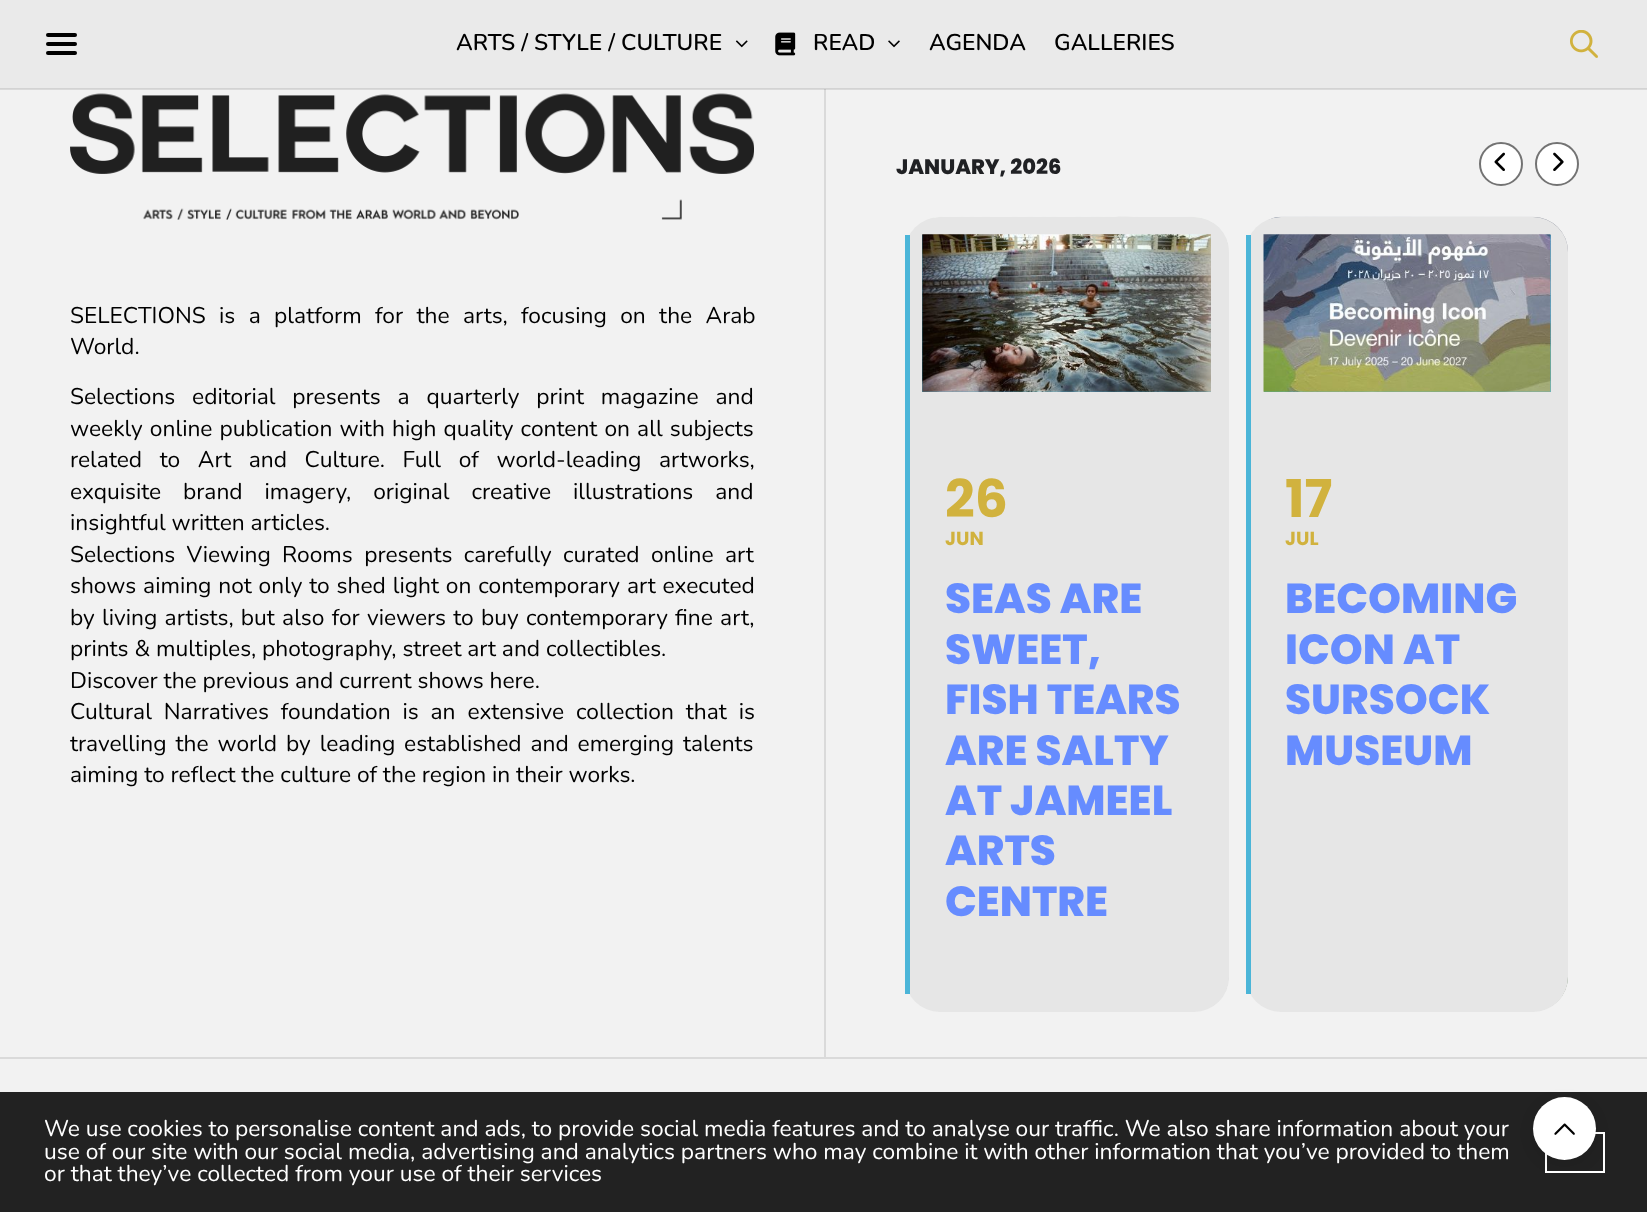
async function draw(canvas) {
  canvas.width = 1647;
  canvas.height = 1212;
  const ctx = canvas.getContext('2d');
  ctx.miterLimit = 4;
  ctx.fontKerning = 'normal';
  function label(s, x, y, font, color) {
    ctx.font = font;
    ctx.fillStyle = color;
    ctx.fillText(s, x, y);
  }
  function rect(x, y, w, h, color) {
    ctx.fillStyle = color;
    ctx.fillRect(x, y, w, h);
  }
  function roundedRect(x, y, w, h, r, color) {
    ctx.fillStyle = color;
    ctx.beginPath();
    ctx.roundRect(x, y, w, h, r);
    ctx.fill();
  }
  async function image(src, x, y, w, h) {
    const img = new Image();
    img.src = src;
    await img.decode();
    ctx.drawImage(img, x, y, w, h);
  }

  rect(0, 0, 1647, 1212, '#f2f2f2');
  rect(0, 89, 1647, 1, '#dadada');
  rect(0, 0, 1647, 88, '#eaeaea');
  rect(0, 88, 1647, 1, '#d3d3d3');
  roundedRect(46, 33, 31, 4, 2, '#000');
  roundedRect(46, 42, 31, 4, 2, '#000');
  roundedRect(46, 51, 31, 4, 2, '#000');
  label('ARTS / STYLE / CULTURE', 456, 50, '600 22.75px Nunito', '#000');
  await image('assets/img1.png', 735, 40, 13, 8);
  await image('assets/img2.png', 775, 32, 21, 24);
  label('READ', 813, 50, '600 22.75px Nunito', '#000');
  await image('assets/img3.png', 888, 40, 12, 8);
  label('AGENDA', 929, 50, '600 22.75px Nunito', '#000');
  label('GALLERIES', 1054, 50, '600 22.75px Nunito', '#000');
  await image('assets/img4.png', 1570, 30, 28, 28);
  await image('assets/img5.png', 70, 93, 684, 127);
  ctx.wordSpacing = '7.5px';
  label('SELECTIONS is a platform for the arts, focusing on the Arab', 70, 323, '22.75px Nunito', '#000');
  ctx.wordSpacing = '0px';
  label('World.', 70, 354, '22.75px Nunito', '#000');
  ctx.wordSpacing = '11px';
  label('Selections editorial presents a quarterly print magazine and', 70, 404, '22.75px Nunito', '#000');
  ctx.wordSpacing = '1.25px';
  label('weekly online publication with high quality content on all subjects', 70, 436, '22.75px Nunito', '#000');
  ctx.wordSpacing = '11.75px';
  label('related to Art and Culture. Full of world-leading artworks,', 70, 467, '22.75px Nunito', '#000');
  ctx.wordSpacing = '16px';
  label('exquisite brand imagery, original creative illustrations and', 70, 499, '22.75px Nunito', '#000');
  ctx.wordSpacing = '0px';
  label('insightful written articles.', 70, 530, '22.75px Nunito', '#000');
  ctx.wordSpacing = '5.5px';
  label('Selections Viewing Rooms presents carefully curated online art', 70, 562, '22.75px Nunito', '#000');
  ctx.wordSpacing = '1px';
  label('shows aiming not only to shed light on contemporary art executed', 70, 593, '22.75px Nunito', '#000');
  ctx.wordSpacing = '1.4px';
  label('by living artists, but also for viewers to buy contemporary fine art,', 70, 625, '22.75px Nunito', '#000');
  ctx.wordSpacing = '0px';
  label('prints & multiples, photography, street art and collectibles.', 70, 656, '22.75px Nunito', '#000');
  label('Discover the previous and current shows here.', 70, 688, '22.75px Nunito', '#000');
  ctx.wordSpacing = '6px';
  label('Cultural Narratives foundation is an extensive collection that is', 70, 719, '22.75px Nunito', '#000');
  ctx.wordSpacing = '3px';
  label('travelling the world by leading established and emerging talents', 70, 751, '22.75px Nunito', '#000');
  ctx.wordSpacing = '0px';
  label('aiming to reflect the culture of the region in their works.', 70, 782, '22.75px Nunito', '#000');
  rect(824, 90, 2, 967, '#dadada');
  rect(824, 89, 2, 1, '#c4c4c4');
  label('JANUARY, 2026', 896, 174, '800 21px Poppins', '#202124');
  ctx.fillStyle = '#fff';
  ctx.beginPath();
  ctx.arc(1501, 164, 21, 0, 2 * Math.PI);
  ctx.fill();
  ctx.strokeStyle = '#737373';
  ctx.lineWidth = 2;
  ctx.stroke();
  await image('assets/img6.png', 1494, 152, 11, 19);
  ctx.beginPath();
  ctx.arc(1557, 164, 21, 0, 2 * Math.PI);
  ctx.fill();
  ctx.stroke();
  await image('assets/img7.png', 1553, 152, 11, 19);
  await image('assets/img9.png', 927, 216, 302, 796);
  roundedRect(905, 217, 324, 795, 35, '#e6e6e6');
  rect(922, 235, 289, 157, '#4bb5d8');
  await image('assets/img8.png', 922, 234, 289, 158);
  rect(905, 235, 5, 759, '#4bb5d8');
  label('26', 945, 517, 'bold 52px Poppins', '#d1b23e');
  label('JUN', 945, 545, 'bold 19px Poppins', '#d1b23e');
  label('SEAS ARE', 945, 613, '800 42px Poppins', '#668cff');
  label('SWEET,', 945, 664, '800 42px Poppins', '#668cff');
  label('FISH TEARS', 945, 714, '800 42px Poppins', '#668cff');
  label('ARE SALTY', 945, 765, '800 42px Poppins', '#668cff');
  label('AT JAMEEL', 945, 815, '800 42px Poppins', '#668cff');
  label('ARTS', 945, 865, '800 42px Poppins', '#668cff');
  label('CENTRE', 945, 916, '800 42px Poppins', '#668cff');
  await image('assets/img11.png', 1268, 216, 300, 796);
  roundedRect(1246, 217, 322, 795, 35, '#e6e6e6');
  rect(1264, 235, 287, 157, '#4bb5d8');
  await image('assets/img10.png', 1263, 234, 288, 158);
  rect(1246, 235, 5, 759, '#4bb5d8');
  label('17', 1285, 517, 'bold 52px Poppins', '#d1b23e');
  label('JUL', 1285, 545, 'bold 19px Poppins', '#d1b23e');
  label('BECOMING', 1285, 613, '800 42px Poppins', '#668cff');
  label('ICON AT', 1285, 664, '800 42px Poppins', '#668cff');
  label('SURSOCK', 1285, 714, '800 42px Poppins', '#668cff');
  label('MUSEUM', 1285, 765, '800 42px Poppins', '#668cff');
  rect(0, 1057, 1647, 2, '#dadada');
  rect(0, 1092, 1647, 120, '#222');
  label('We use cookies to personalise content and ads, to provide social media features and to analyse our traffic. We also share information about your', 44, 1136, '22.75px Nunito', '#fff');
  label('use of our site with our social media, advertising and analytics partners who may combine it with other information that you’ve provided to them', 44, 1159, '22.75px Nunito', '#fff');
  label('or that they’ve collected from your use of their services', 44, 1181, '22.75px Nunito', '#fff');
  ctx.strokeStyle = '#fff';
  ctx.strokeRect(1546, 1133, 58, 39);
  ctx.fillStyle = '#0000001a';
  ctx.filter = 'blur(7px)';
  ctx.beginPath();
  ctx.roundRect(1533, 1101, 63, 63, 31.5);
  ctx.fill();
  ctx.filter = 'none';
  ctx.fillStyle = '#fff';
  ctx.beginPath();
  ctx.arc(1564.5, 1128.5, 31.5, 0, 2 * Math.PI);
  ctx.fill();
  await image('assets/img12.png', 1554, 1123, 21, 12);
}

draw(document.querySelector('canvas'));
